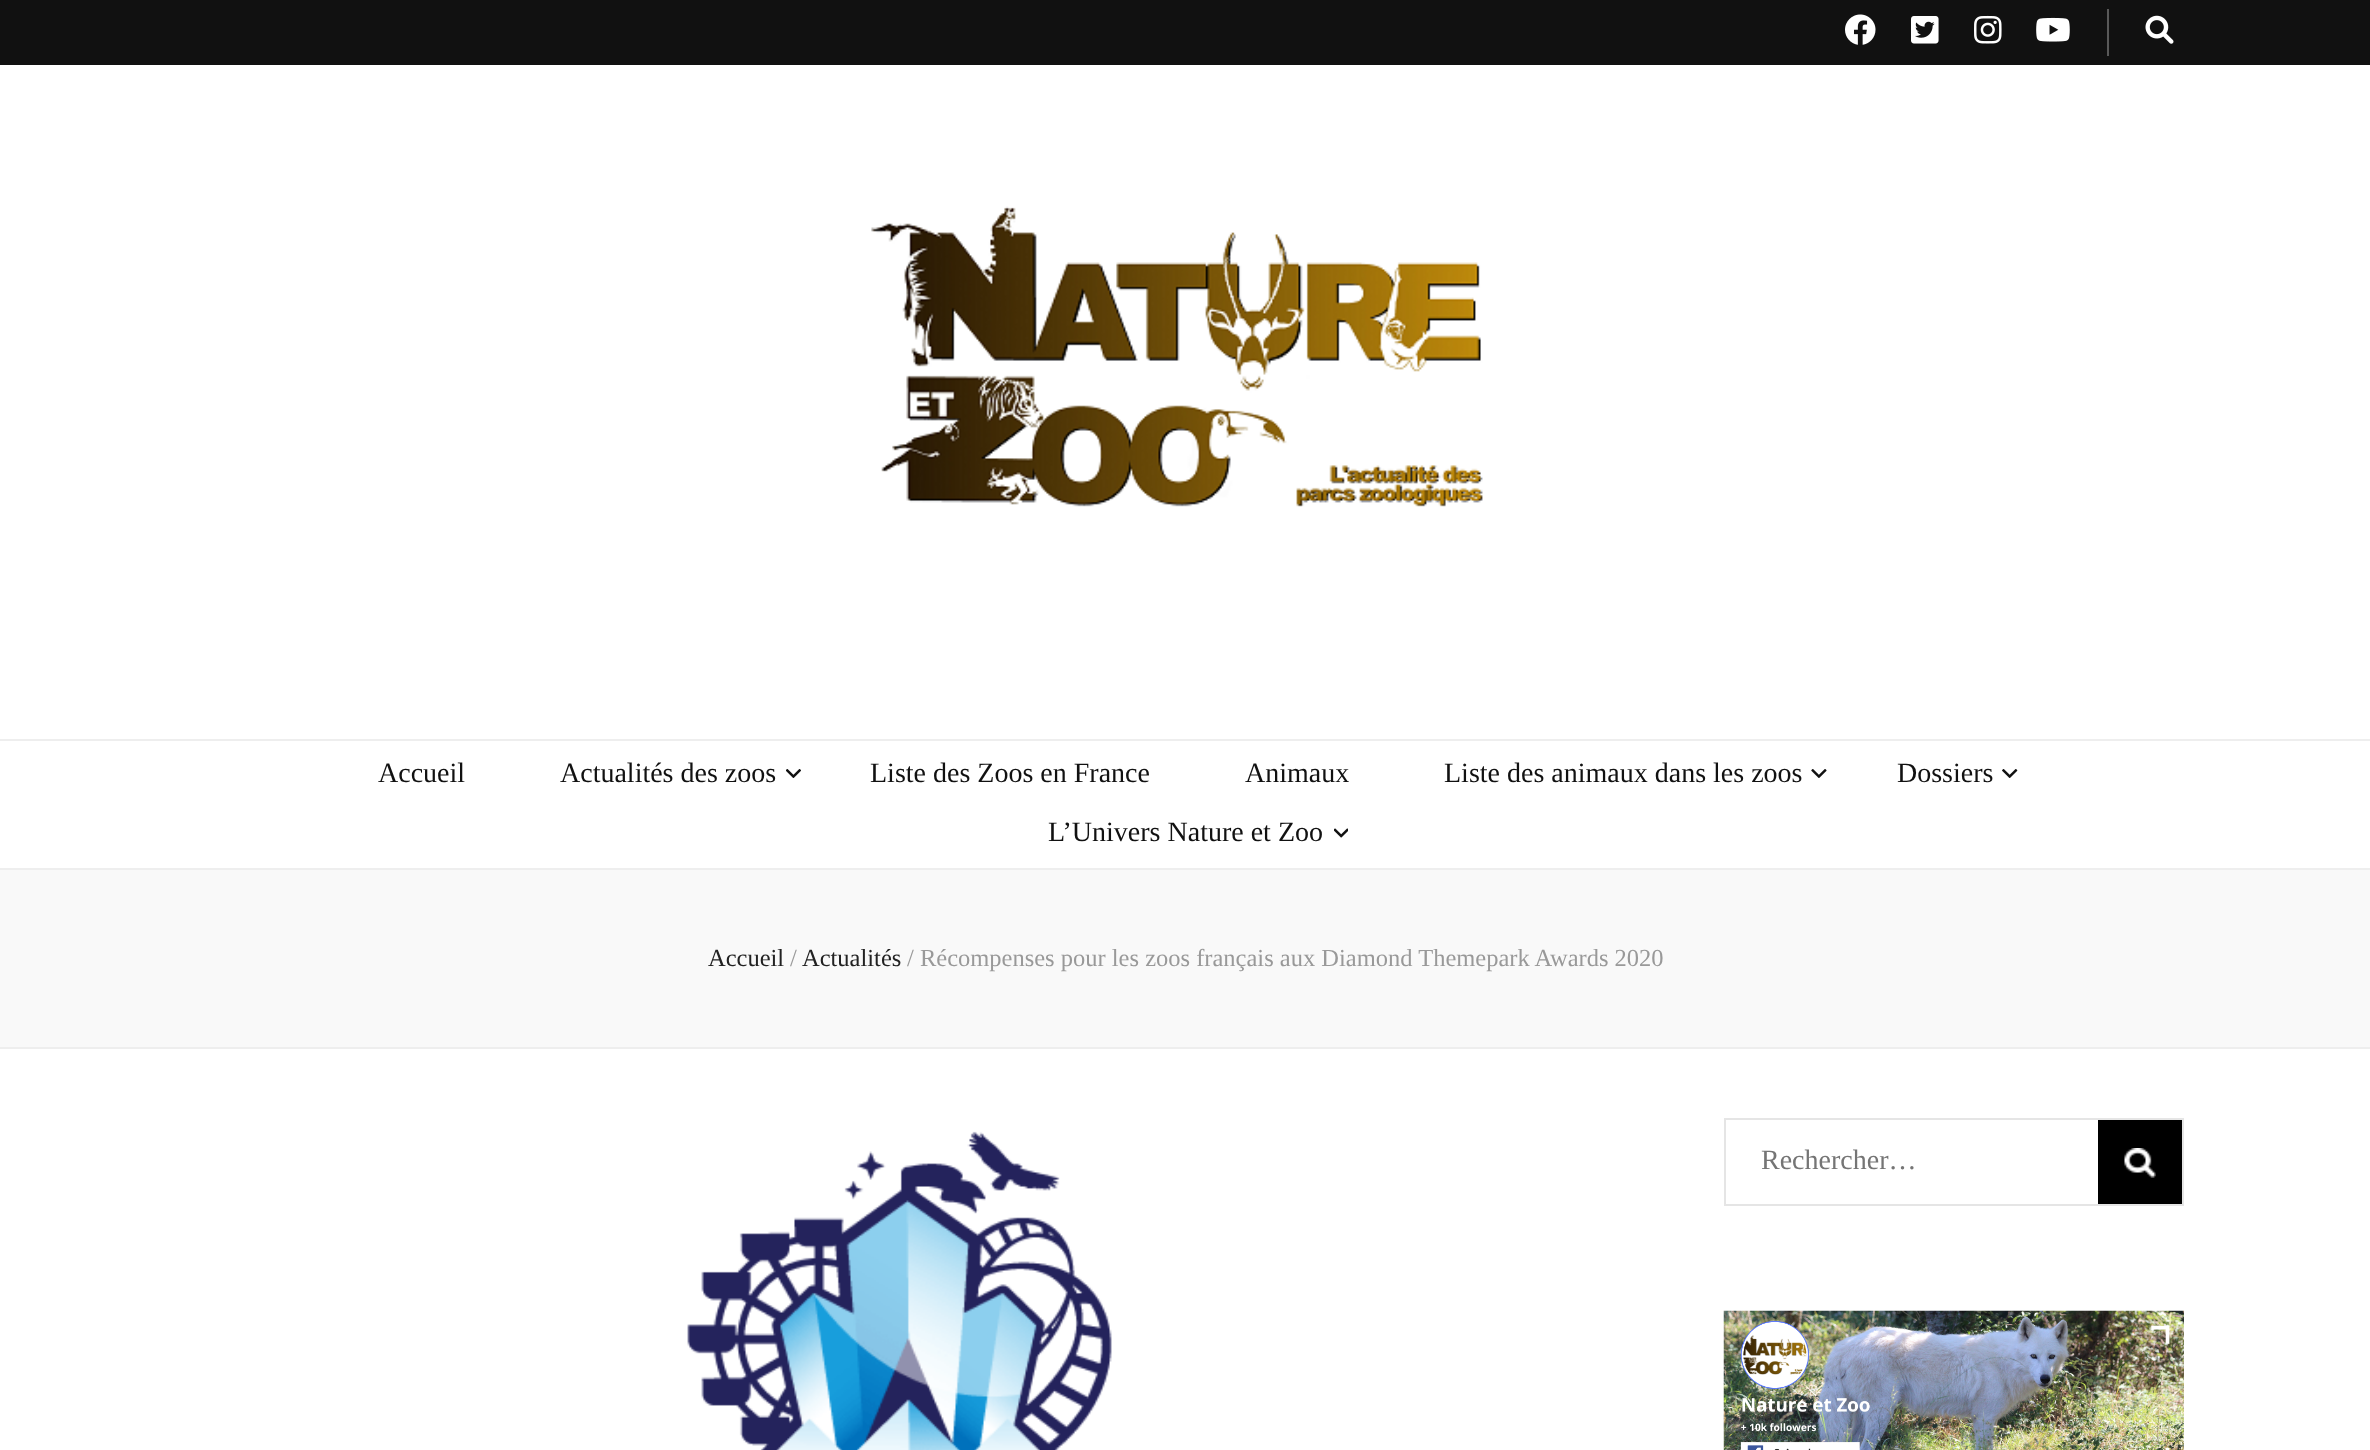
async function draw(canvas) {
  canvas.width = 2370;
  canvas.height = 1450;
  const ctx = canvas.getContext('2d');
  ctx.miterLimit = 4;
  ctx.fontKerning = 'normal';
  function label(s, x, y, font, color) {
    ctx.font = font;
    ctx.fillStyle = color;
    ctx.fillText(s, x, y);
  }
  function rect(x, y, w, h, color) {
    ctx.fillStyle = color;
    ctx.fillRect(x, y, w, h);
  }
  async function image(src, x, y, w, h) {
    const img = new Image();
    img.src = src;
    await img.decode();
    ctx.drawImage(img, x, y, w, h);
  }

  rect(0, 0, 2370, 1450, '#fff');
  rect(0, 0, 2370, 65, '#111');
  rect(2107, 9, 2, 47, '#595959');
  await image('assets/img1.png', 1845, 14, 31, 31);
  await image('assets/img2.png', 1911, 16, 28, 28);
  await image('assets/img3.png', 1974, 15, 28, 29);
  await image('assets/img4.png', 2036, 17, 34, 25);
  await image('assets/img5.png', 2145, 15, 29, 29);
  await image('assets/img6.png', 871, 206, 612, 301);
  rect(0, 739, 2370, 2, '#eee');
  rect(0, 868, 2370, 2, '#eee');
  label('Accueil', 378, 782, '28px Liberation Serif', '#111');
  label('Actualités des zoos', 560, 782, '28px Liberation Serif', '#111');
  await image('assets/img7.png', 786, 769, 15, 9);
  label('Liste des Zoos en France', 870, 782, '28px Liberation Serif', '#111');
  label('Animaux', 1245, 782, '28px Liberation Serif', '#111');
  label('Liste des animaux dans les zoos', 1444, 782, '28px Liberation Serif', '#111');
  await image('assets/img8.png', 1811, 769, 16, 9);
  label('Dossiers', 1897, 782, '28px Liberation Serif', '#111');
  await image('assets/img9.png', 2002, 769, 16, 9);
  label('L’Univers Nature et Zoo', 1048, 841, '28px Liberation Serif', '#111');
  await image('assets/img10.png', 1334, 828, 14, 10);
  rect(0, 870, 2370, 177, '#f9f9f9');
  rect(0, 1047, 2370, 2, '#eee');
  label('Accueil', 708, 966, '24.5px Liberation Serif', '#222');
  label('/', 790, 966, '24.5px Liberation Serif', '#999');
  label('Actualités', 802, 966, '24.5px Liberation Serif', '#222');
  label('/ Récompenses pour les zoos français aux Diamond Themepark Awards 2020', 907, 966, '24.5px Liberation Serif', '#999');
  await image('assets/img11.png', 687, 1131, 425, 319);
  ctx.strokeStyle = '#e5e5e5';
  ctx.lineWidth = 2;
  ctx.strokeRect(1725, 1119, 458, 86);
  label('Rechercher…', 1761, 1169, '28px Liberation Serif', '#757575');
  rect(2098, 1120, 84, 84, '#000');
  await image('assets/img12.png', 2124, 1148, 32, 30);
  await image('assets/img13.png', 1723, 1310, 461, 140);
}

draw(document.querySelector('canvas'));
